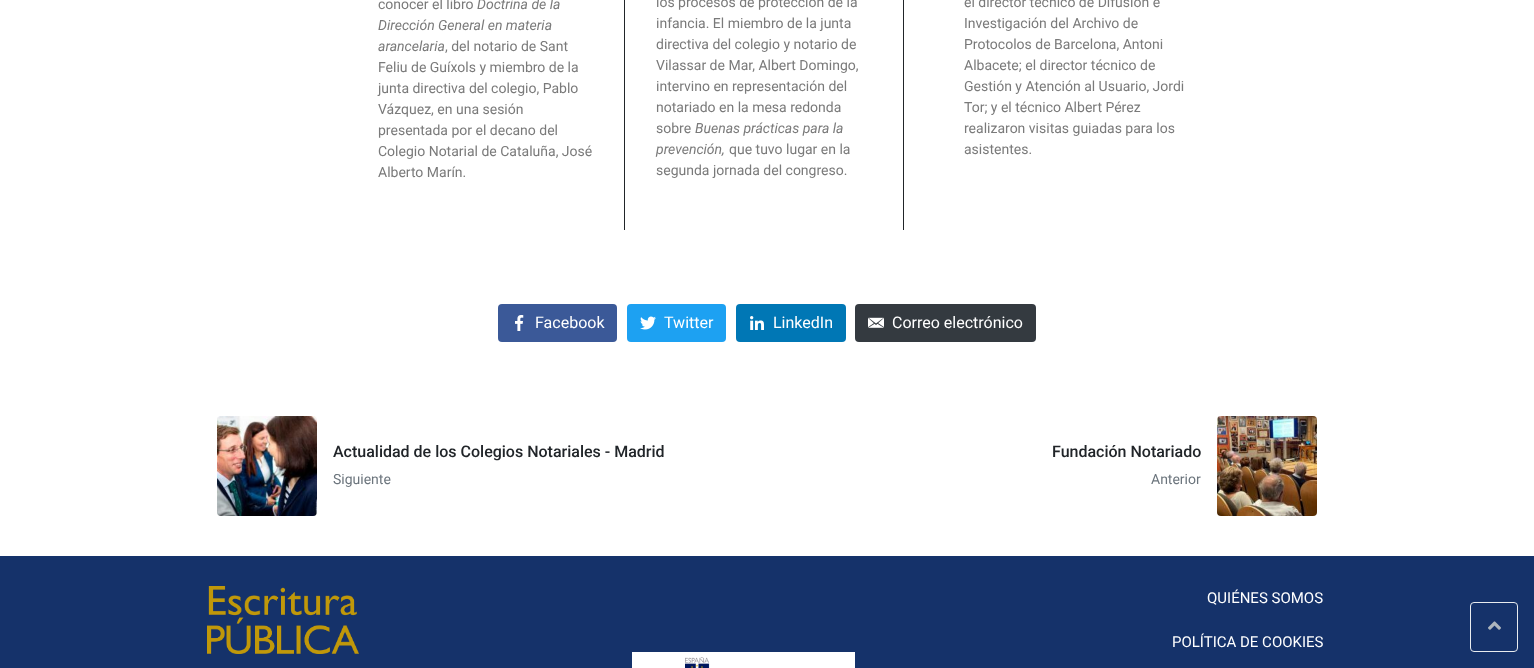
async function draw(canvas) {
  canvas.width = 1534;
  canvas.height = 668;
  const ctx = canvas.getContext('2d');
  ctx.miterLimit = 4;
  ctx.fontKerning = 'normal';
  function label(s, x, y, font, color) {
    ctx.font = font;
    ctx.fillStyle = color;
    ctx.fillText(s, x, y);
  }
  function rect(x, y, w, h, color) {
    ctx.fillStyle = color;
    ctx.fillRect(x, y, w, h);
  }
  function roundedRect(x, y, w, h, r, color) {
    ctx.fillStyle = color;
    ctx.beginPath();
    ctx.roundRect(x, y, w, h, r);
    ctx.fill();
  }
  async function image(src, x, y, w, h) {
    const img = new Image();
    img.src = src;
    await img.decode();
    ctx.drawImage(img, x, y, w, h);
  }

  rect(0, 0, 1534, 668, '#15326a');
  rect(0, 0, 1534, 556, '#fff');
  label('conocer el libro', 378, 9, '14px Roboto', '#7a7a7a');
  label('Doctrina de la', 477, 9, 'italic 14px Roboto', '#7a7a7a');
  label('Dirección General en materia', 378, 30, 'italic 14px Roboto', '#7a7a7a');
  label('arancelaria', 378, 51, 'italic 14px Roboto', '#7a7a7a');
  label(', del notario de Sant', 445, 51, '14px Roboto', '#7a7a7a');
  label('Feliu de Guíxols y miembro de la', 378, 72, '14px Roboto', '#7a7a7a');
  label('junta directiva del colegio, Pablo', 378, 93, '14px Roboto', '#7a7a7a');
  label('Vázquez, en una sesión', 378, 114, '14px Roboto', '#7a7a7a');
  label('presentada por el decano del', 378, 135, '14px Roboto', '#7a7a7a');
  label('Colegio Notarial de Cataluña, José', 378, 156, '14px Roboto', '#7a7a7a');
  label('Alberto Marín.', 378, 177, '14px Roboto', '#7a7a7a');
  rect(903, 0, 1, 230, '#212529');
  rect(624, 0, 1, 230, '#212529');
  label('los procesos de protección de la', 656, 7, '14px Roboto', '#7a7a7a');
  label('infancia. El miembro de la junta', 656, 28, '14px Roboto', '#7a7a7a');
  label('directiva del colegio y notario de', 656, 49, '14px Roboto', '#7a7a7a');
  label('Vilassar de Mar, Albert Domingo,', 656, 70, '14px Roboto', '#7a7a7a');
  label('intervino en representación del', 656, 91, '14px Roboto', '#7a7a7a');
  label('notariado en la mesa redonda', 656, 112, '14px Roboto', '#7a7a7a');
  label('sobre', 656, 133, '14px Roboto', '#7a7a7a');
  label('Buenas prácticas para la', 695, 133, 'italic 14px Roboto', '#7a7a7a');
  label('prevención,', 656, 154, 'italic 14px Roboto', '#7a7a7a');
  label('que tuvo lugar en la', 729, 154, '14px Roboto', '#7a7a7a');
  label('segunda jornada del congreso.', 656, 175, '14px Roboto', '#7a7a7a');
  label('el director técnico de Difusión e', 964, 7, '14px Roboto', '#7a7a7a');
  label('Investigación del Archivo de', 964, 28, '14px Roboto', '#7a7a7a');
  label('Protocolos de Barcelona, Antoni', 964, 49, '14px Roboto', '#7a7a7a');
  label('Albacete; el director técnico de', 964, 70, '14px Roboto', '#7a7a7a');
  label('Gestión y Atención al Usuario, Jordi', 964, 91, '14px Roboto', '#7a7a7a');
  label('Tor; y el técnico Albert Pérez', 964, 112, '14px Roboto', '#7a7a7a');
  label('realizaron visitas guiadas para los', 964, 133, '14px Roboto', '#7a7a7a');
  label('asistentes.', 964, 154, '14px Roboto', '#7a7a7a');
  roundedRect(498, 304, 119, 38, 4, '#3b5998');
  await image('assets/img1.png', 515, 315, 9, 16);
  label('Facebook', 535, 328, '16px Roboto', '#fff');
  roundedRect(627, 304, 99, 38, 4, '#1da1f2');
  await image('assets/img2.png', 640, 316, 16, 14);
  label('Twitter', 664, 328, '16px Roboto', '#fff');
  roundedRect(736, 304, 110, 38, 4, '#0077b5');
  await image('assets/img3.png', 750, 316, 14, 14);
  label('LinkedIn', 773, 328, '16px Roboto', '#fff');
  roundedRect(855, 304, 181, 38, 4, '#343a40');
  await image('assets/img4.png', 868, 317, 16, 11);
  label('Correo electrónico', 892, 328, '16px Roboto', '#fff');
  await image('assets/img5.png', 217, 416, 100, 100);
  label('Actualidad de los Colegios Notariales - Madrid', 333, 457, '500 16px Roboto', '#212529');
  label('Siguiente', 333, 484, '14px Roboto', '#6c757d');
  label('Fundación Notariado', 1052, 457, '500 16px Roboto', '#212529');
  label('Anterior', 1151, 484, '14px Roboto', '#6c757d');
  await image('assets/img6.png', 1217, 416, 100, 100);
  await image('assets/img7.png', 207, 586, 152, 68);
  label('QUIÉNES SOMOS', 1207, 603, '15px Roboto', '#fff');
  label('POLÍTICA DE COOKIES', 1172, 647, '15px Roboto', '#fff');
  rect(632, 652, 223, 16, '#fff');
  await image('assets/img8.png', 685, 657, 25, 11);
  ctx.beginPath();
  ctx.roundRect(1470.5, 602.5, 47, 49, 3.5);
  ctx.strokeStyle = '#e9ecef';
  ctx.stroke();
  await image('assets/img9.png', 1488, 621, 13, 9);
}

draw(document.querySelector('canvas'));
